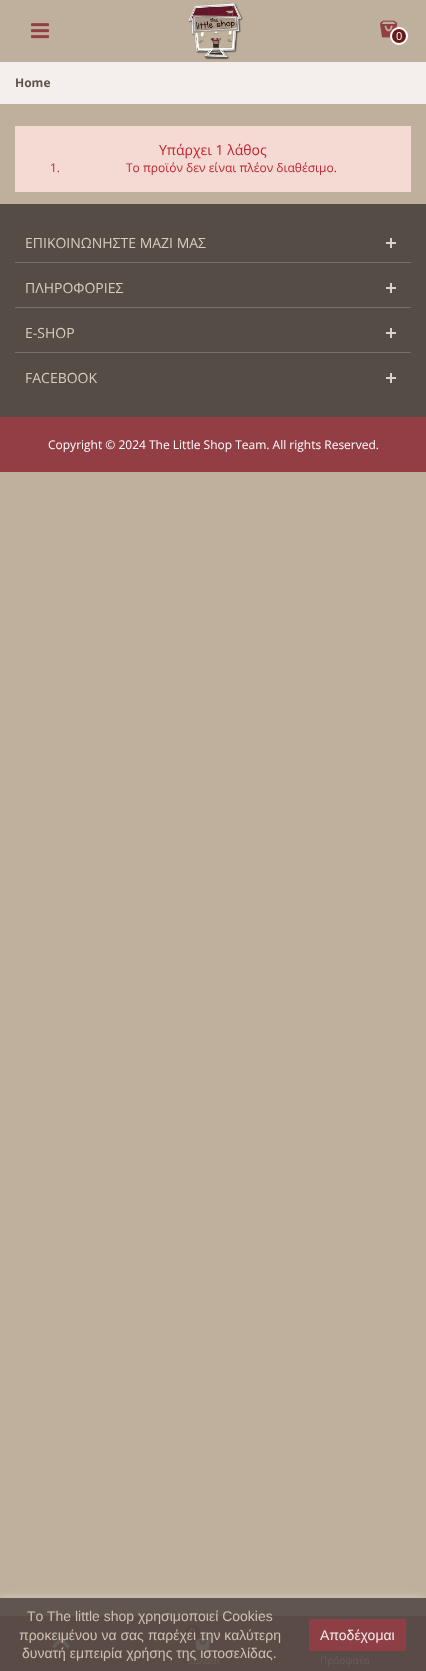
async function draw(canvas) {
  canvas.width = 426;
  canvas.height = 1671;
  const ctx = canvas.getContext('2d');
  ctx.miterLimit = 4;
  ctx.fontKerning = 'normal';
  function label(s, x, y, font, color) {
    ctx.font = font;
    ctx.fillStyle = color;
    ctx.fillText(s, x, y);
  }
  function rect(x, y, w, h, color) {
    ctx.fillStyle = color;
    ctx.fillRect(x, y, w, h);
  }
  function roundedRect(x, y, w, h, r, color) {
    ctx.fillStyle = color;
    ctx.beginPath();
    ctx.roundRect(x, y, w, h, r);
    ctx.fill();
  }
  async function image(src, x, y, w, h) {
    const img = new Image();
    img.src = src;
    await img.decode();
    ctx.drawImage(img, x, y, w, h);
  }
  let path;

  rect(0, 0, 426, 1671, '#bfb09d');
  rect(0, 1598, 426, 18, '#60564f');
  await image('assets/img1.png', 31, 23, 18, 16);
  await image('assets/img2.png', 188, 3, 55, 57);
  await image('assets/img3.png', 380, 20, 18, 18);
  ctx.fillStyle = '#691a1a';
  ctx.beginPath();
  ctx.arc(399, 36, 8, 0, 2 * Math.PI);
  ctx.fill();
  ctx.strokeStyle = '#fff';
  ctx.lineWidth = 2;
  ctx.stroke();
  label('0', 396, 40, '11px Open Sans', '#fff');
  rect(0, 62, 426, 42, '#f4efed');
  label('Home', 15, 87, 'bold 12px Open Sans', '#615348');
  rect(15, 126, 396, 66, '#f5dad3');
  label('Υπάρχει 1 λάθος', 159, 155, '14px Open Sans', '#c02230');
  label('1.', 50, 172, '12px Open Sans', '#c02230');
  label('Το προϊόν δεν είναι πλέον διαθέσιμο.', 126, 172, '12px Open Sans', '#c02230');
  rect(0, 204, 426, 213, '#554c46');
  rect(15, 262, 396, 1, '#75706a');
  label('ΕΠΙΚΟΙΝΩΝΗΣΤΕ ΜΑΖΙ ΜΑΣ', 25, 248, '14px Open Sans', '#d9cdc0');
  await image('assets/img4.png', 386, 238, 10, 10);
  rect(15, 307, 396, 1, '#75706a');
  label('ΠΛΗΡΟΦΟΡΙΕΣ', 25, 293, '14px Open Sans', '#d9cdc0');
  await image('assets/img4.png', 386, 283, 10, 10);
  rect(15, 352, 396, 1, '#75706a');
  label('Ε-SHOP', 25, 338, '14px Open Sans', '#d9cdc0');
  await image('assets/img4.png', 386, 328, 10, 10);
  label('FACEBOOK', 25, 383, '14px Open Sans', '#d9cdc0');
  await image('assets/img4.png', 386, 373, 10, 10);
  rect(0, 417, 426, 55, '#933e45');
  label('Copyright © 2024 The Little Shop Team. All rights Reserved.', 48, 449, '12px Open Sans', '#fff');
  rect(0, 1616, 426, 55, '#5b4b46');
  ctx.fillStyle = '#665e59';
  path = new Path2D('M52 1646L61 1637L70 1646L67.5 1648.5L61 1642L54.5 1648.5Z');
  ctx.fill(path);
  await image('assets/img5.png', 195, 1635, 16, 16);
  ctx.fillStyle = '#574742';
  ctx.beginPath();
  ctx.arc(193, 1633, 8, 0, 2 * Math.PI);
  ctx.fill();
  label('0', 189, 1636, '11px Open Sans', '#665e59');
  label('Καλάθι', 187, 1664, '10px Open Sans', '#665e59');
  await image('assets/img6.png', 337, 1635, 16, 16);
  ctx.fillStyle = '#574742';
  ctx.beginPath();
  ctx.arc(335, 1633, 8, 0, 2 * Math.PI);
  ctx.fill();
  label('Πρόσφατα', 320, 1664, '10px Open Sans', '#665e59');
  ctx.save();
  ctx.beginPath();
  ctx.rect(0, 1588, 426, 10);
  ctx.clip();
  ctx.fillStyle = '#d6cabd';
  ctx.filter = 'blur(5px)';
  ctx.beginPath();
  ctx.rect(0, 1598, 426, 73);
  ctx.fill();
  ctx.filter = 'none';
  ctx.restore();
  label('Τo The little shop χρησιμοποιεί Cookies', 27, 1621, '14px Liberation Sans', '#cdc0b4');
  label('προκειμένου να σας παρέχει την καλύτερη', 19, 1640, '14px Liberation Sans', '#cdc0b4');
  label('δυνατή εμπειρία χρήσης της ιστοσελίδας.', 22, 1658, '14px Liberation Sans', '#cdc0b4');
  roundedRect(309, 1619, 97, 32, 2, '#933e45e6');
  label('Αποδέχομαι', 320, 1640, '14px Liberation Sans', '#f4ecec');
}

draw(document.querySelector('canvas'));
